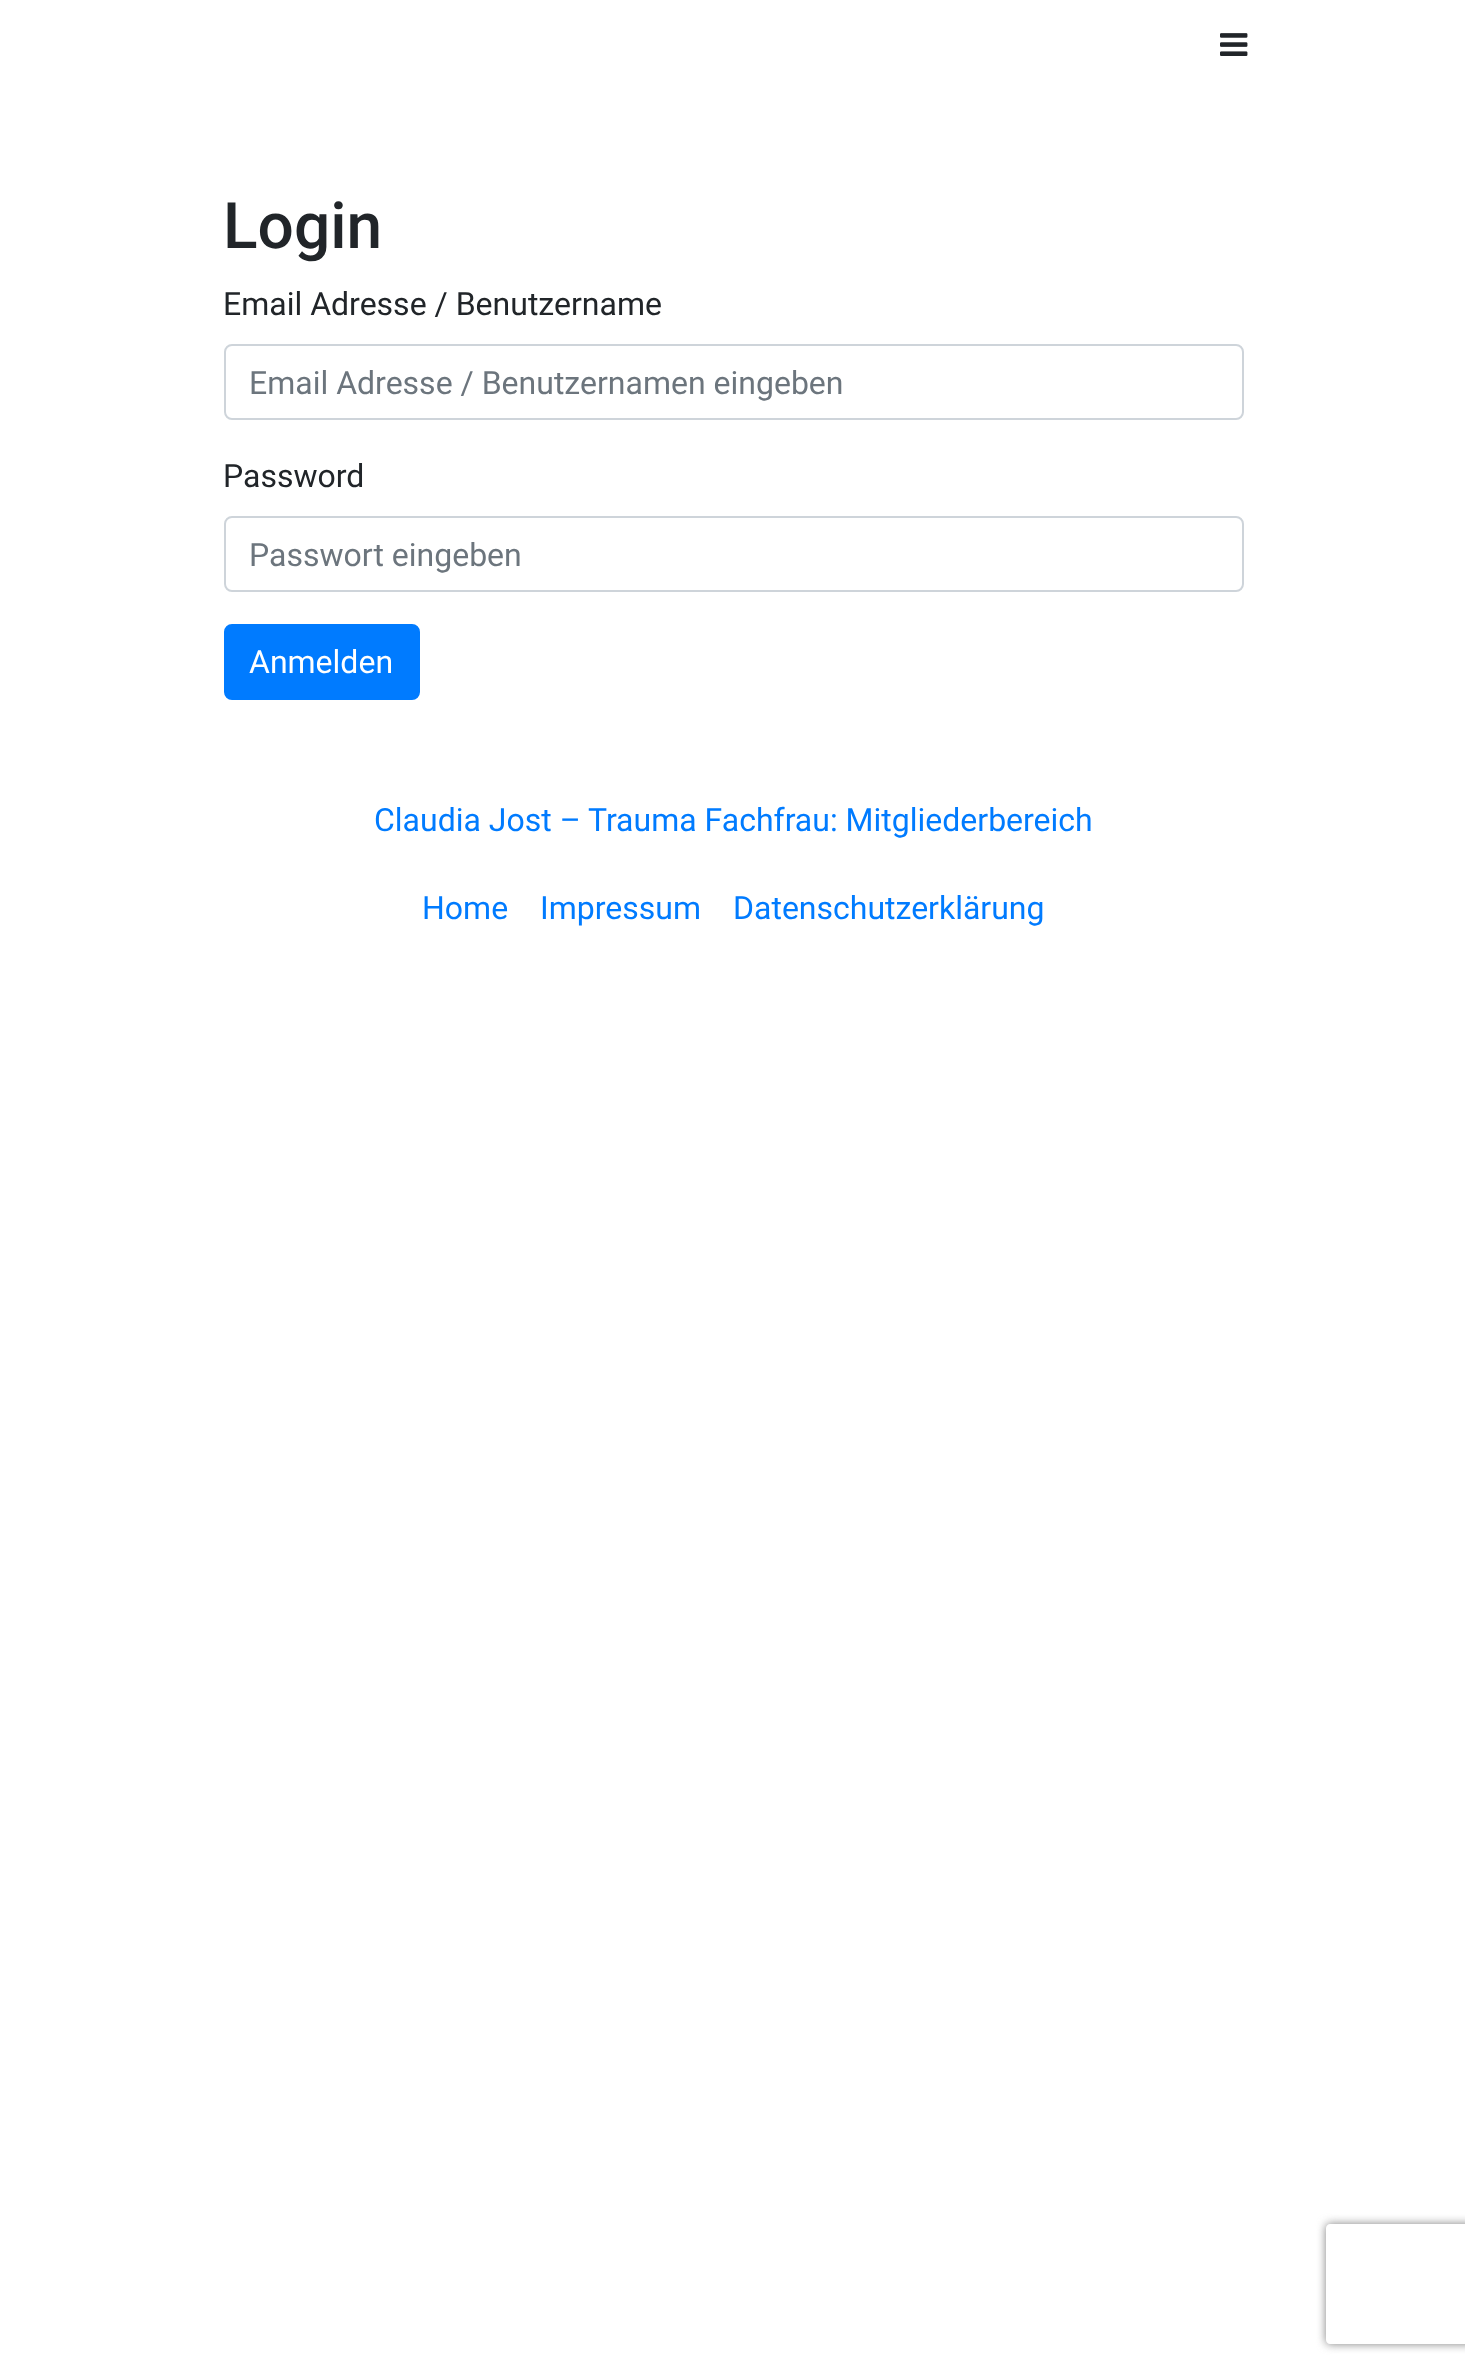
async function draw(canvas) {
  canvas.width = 1465;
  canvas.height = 2371;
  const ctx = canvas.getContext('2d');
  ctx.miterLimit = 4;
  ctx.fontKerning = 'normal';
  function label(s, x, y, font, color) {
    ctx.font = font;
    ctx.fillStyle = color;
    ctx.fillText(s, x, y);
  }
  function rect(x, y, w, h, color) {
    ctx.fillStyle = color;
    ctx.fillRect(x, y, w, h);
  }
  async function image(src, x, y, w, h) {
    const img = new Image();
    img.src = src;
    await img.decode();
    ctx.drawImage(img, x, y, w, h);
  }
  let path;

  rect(0, 0, 1465, 2371, '#fff');
  await image('assets/img1.png', 1220, 33, 28, 23);
  label('Login', 223, 248, '500 64px Roboto', '#212529');
  label('Email Adresse / Benutzername', 223, 315, '32px Roboto', '#212529');
  ctx.beginPath();
  ctx.roundRect(225, 345, 1018, 74, 7);
  ctx.strokeStyle = '#ced4da';
  ctx.lineWidth = 2;
  ctx.stroke();
  label('Email Adresse / Benutzernamen eingeben', 249, 394, '32px Roboto', '#6c757d');
  label('Password', 223, 487, '32px Roboto', '#212529');
  ctx.beginPath();
  ctx.roundRect(225, 517, 1018, 74, 7);
  ctx.stroke();
  label('Passwort eingeben', 249, 566, '32px Roboto', '#6c757d');
  ctx.fillStyle = '#007bff';
  ctx.beginPath();
  ctx.roundRect(225, 625, 194, 74, 7);
  ctx.fill();
  ctx.strokeStyle = '#007bff';
  ctx.stroke();
  label('Anmelden', 249, 673, '32px Roboto', '#fff');
  label('Claudia Jost – Trauma Fachfrau: Mitgliederbereich', 374, 831, '32px Roboto', '#007bff');
  label('Home', 422, 919, '32px Roboto', '#007bff');
  label('Impressum', 540, 919, '32px Roboto', '#007bff');
  label('Datenschutzerklärung', 733, 919, '32px Roboto', '#007bff');
  ctx.save();
  path = new Path2D('M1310 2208H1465V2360H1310ZM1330 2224H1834C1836 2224 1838 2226 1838 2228V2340C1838 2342 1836 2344 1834 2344H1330C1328 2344 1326 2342 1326 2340V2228C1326 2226 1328 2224 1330 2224Z');
  ctx.clip(path, 'evenodd');
  ctx.fillStyle = '#808080';
  ctx.filter = 'blur(5px)';
  ctx.beginPath();
  ctx.roundRect(1326, 2224, 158, 120, 4);
  ctx.fill();
  ctx.filter = 'none';
  ctx.restore();
}

draw(document.querySelector('canvas'));
